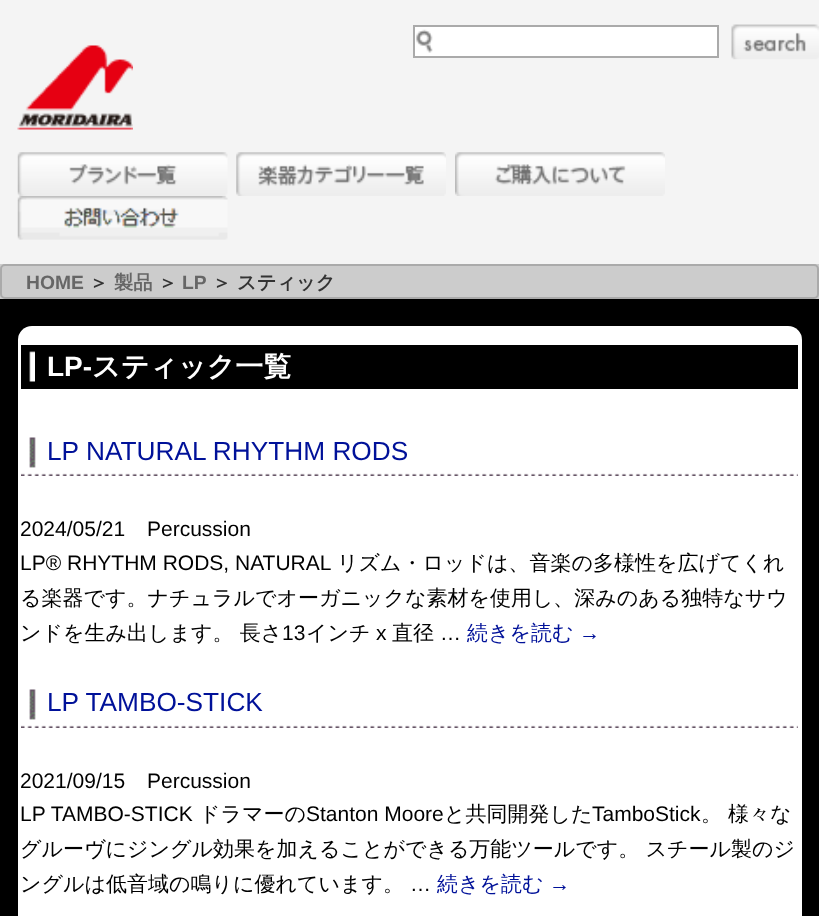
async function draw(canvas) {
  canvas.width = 819;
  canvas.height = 916;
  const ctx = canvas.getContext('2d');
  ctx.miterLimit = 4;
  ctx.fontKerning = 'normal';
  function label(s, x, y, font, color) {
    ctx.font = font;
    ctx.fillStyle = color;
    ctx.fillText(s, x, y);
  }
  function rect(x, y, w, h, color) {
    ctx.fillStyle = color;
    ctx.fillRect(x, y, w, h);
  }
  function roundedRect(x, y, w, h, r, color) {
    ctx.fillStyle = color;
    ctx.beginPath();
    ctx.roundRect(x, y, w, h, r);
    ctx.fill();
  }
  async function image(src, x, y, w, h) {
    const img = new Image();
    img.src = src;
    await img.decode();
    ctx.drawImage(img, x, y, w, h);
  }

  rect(0, 0, 819, 916, '#f4f4f4');
  await image('assets/img1.png', 17, 45, 116, 85);
  rect(415, 27, 302, 29, '#fff');
  await image('assets/img2.png', 416, 29, 17, 24);
  ctx.strokeStyle = '#aaa';
  ctx.lineWidth = 2;
  ctx.strokeRect(414, 26, 304, 31);
  await image('assets/img3.png', 731, 24, 88, 36);
  await image('assets/img4.png', 17, 152, 211, 44);
  await image('assets/img5.png', 236, 152, 210, 44);
  await image('assets/img6.png', 455, 152, 210, 44);
  await image('assets/img7.png', 17, 196, 211, 44);
  rect(0, 264, 819, 35, '#ccc');
  ctx.beginPath();
  ctx.roundRect(1, 265, 817, 33, 4);
  ctx.stroke();
  label('HOME', 26, 289, 'bold 19.25px Liberation Sans', '#666');
  label('＞', 89, 289, 'bold 19.25px WenQuanYi Zen Hei', '#333');
  label('製品', 114, 289, 'bold 19.25px WenQuanYi Zen Hei', '#666');
  label('＞', 158, 289, 'bold 19.25px WenQuanYi Zen Hei', '#333');
  label('LP', 182, 289, 'bold 19.25px Liberation Sans', '#666');
  label('＞', 212, 289, 'bold 19.25px WenQuanYi Zen Hei', '#333');
  label('スティック', 237, 289, 'bold 19.25px WenQuanYi Zen Hei', '#333');
  rect(0, 299, 819, 617, '#000');
  roundedRect(18, 326, 784, 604, 14, '#fff');
  rect(21, 345, 777, 44, '#000');
  await image('assets/img8.png', 29, 351, 6, 31);
  label('LP-', 47, 376, 'bold 28px Liberation Sans', '#fff');
  label('スティック一覧', 92, 376, 'bold 28px WenQuanYi Zen Hei', '#fff');
  await image('assets/img9.png', 21, 437, 777, 39);
  label('LP NATURAL RHYTHM RODS', 47, 460, '26.25px Liberation Sans', '#019');
  label('2024/05/21', 20, 536, '21px Liberation Sans', '#000');
  label('Percussion', 147, 536, '21px Liberation Sans', '#000');
  label('LP® RHYTHM RODS, NATURAL', 20, 570, '21px Liberation Sans', '#000');
  label('リズム・ロッドは、音楽の多様性を広げてくれ', 337, 570, '500 21px WenQuanYi Zen Hei', '#000');
  label('る楽器です。ナチュラルでオーガニックな素材を使用し、深みのある独特なサウ', 20, 605, '500 21px WenQuanYi Zen Hei', '#000');
  label('ンドを生み出します。 長さ', 20, 640, '500 21px WenQuanYi Zen Hei', '#000');
  label('13', 282, 640, '21px Liberation Sans', '#000');
  label('インチ', 306, 640, '500 21px WenQuanYi Zen Hei', '#000');
  label('x', 376, 640, '21px Liberation Sans', '#000');
  label('直径', 392, 640, '500 21px WenQuanYi Zen Hei', '#000');
  label('…', 440, 640, '21px Liberation Sans', '#000');
  label('続きを読む', 467, 640, '500 21px WenQuanYi Zen Hei', '#019');
  label('→', 579, 640, '21px Liberation Sans', '#019');
  await image('assets/img9.png', 21, 689, 777, 39);
  label('LP TAMBO-STICK', 47, 711, '26.25px Liberation Sans', '#019');
  label('2021/09/15', 20, 788, '21px Liberation Sans', '#000');
  label('Percussion', 147, 788, '21px Liberation Sans', '#000');
  label('LP TAMBO-STICK', 20, 821, '21px Liberation Sans', '#000');
  label('ドラマーの', 199, 821, '500 21px WenQuanYi Zen Hei', '#000');
  label('Stanton Moore', 306, 821, '21px Liberation Sans', '#000');
  label('と共同開発した', 444, 821, '500 21px WenQuanYi Zen Hei', '#000');
  label('TamboStick', 592, 821, '21px Liberation Sans', '#000');
  label('。', 701, 821, '500 21px WenQuanYi Zen Hei', '#000');
  label('様々な', 728, 821, '500 21px WenQuanYi Zen Hei', '#000');
  label('グルーヴにジングル効果を加えることができる万能ツールです。 スチール製のジ', 20, 856, '500 21px WenQuanYi Zen Hei', '#000');
  label('ングルは低音域の鳴りに優れています。', 20, 891, '500 21px WenQuanYi Zen Hei', '#000');
  label('…', 410, 891, '21px Liberation Sans', '#000');
  label('続きを読む', 437, 891, '500 21px WenQuanYi Zen Hei', '#019');
  label('→', 549, 891, '21px Liberation Sans', '#019');
}

draw(document.querySelector('canvas'));
